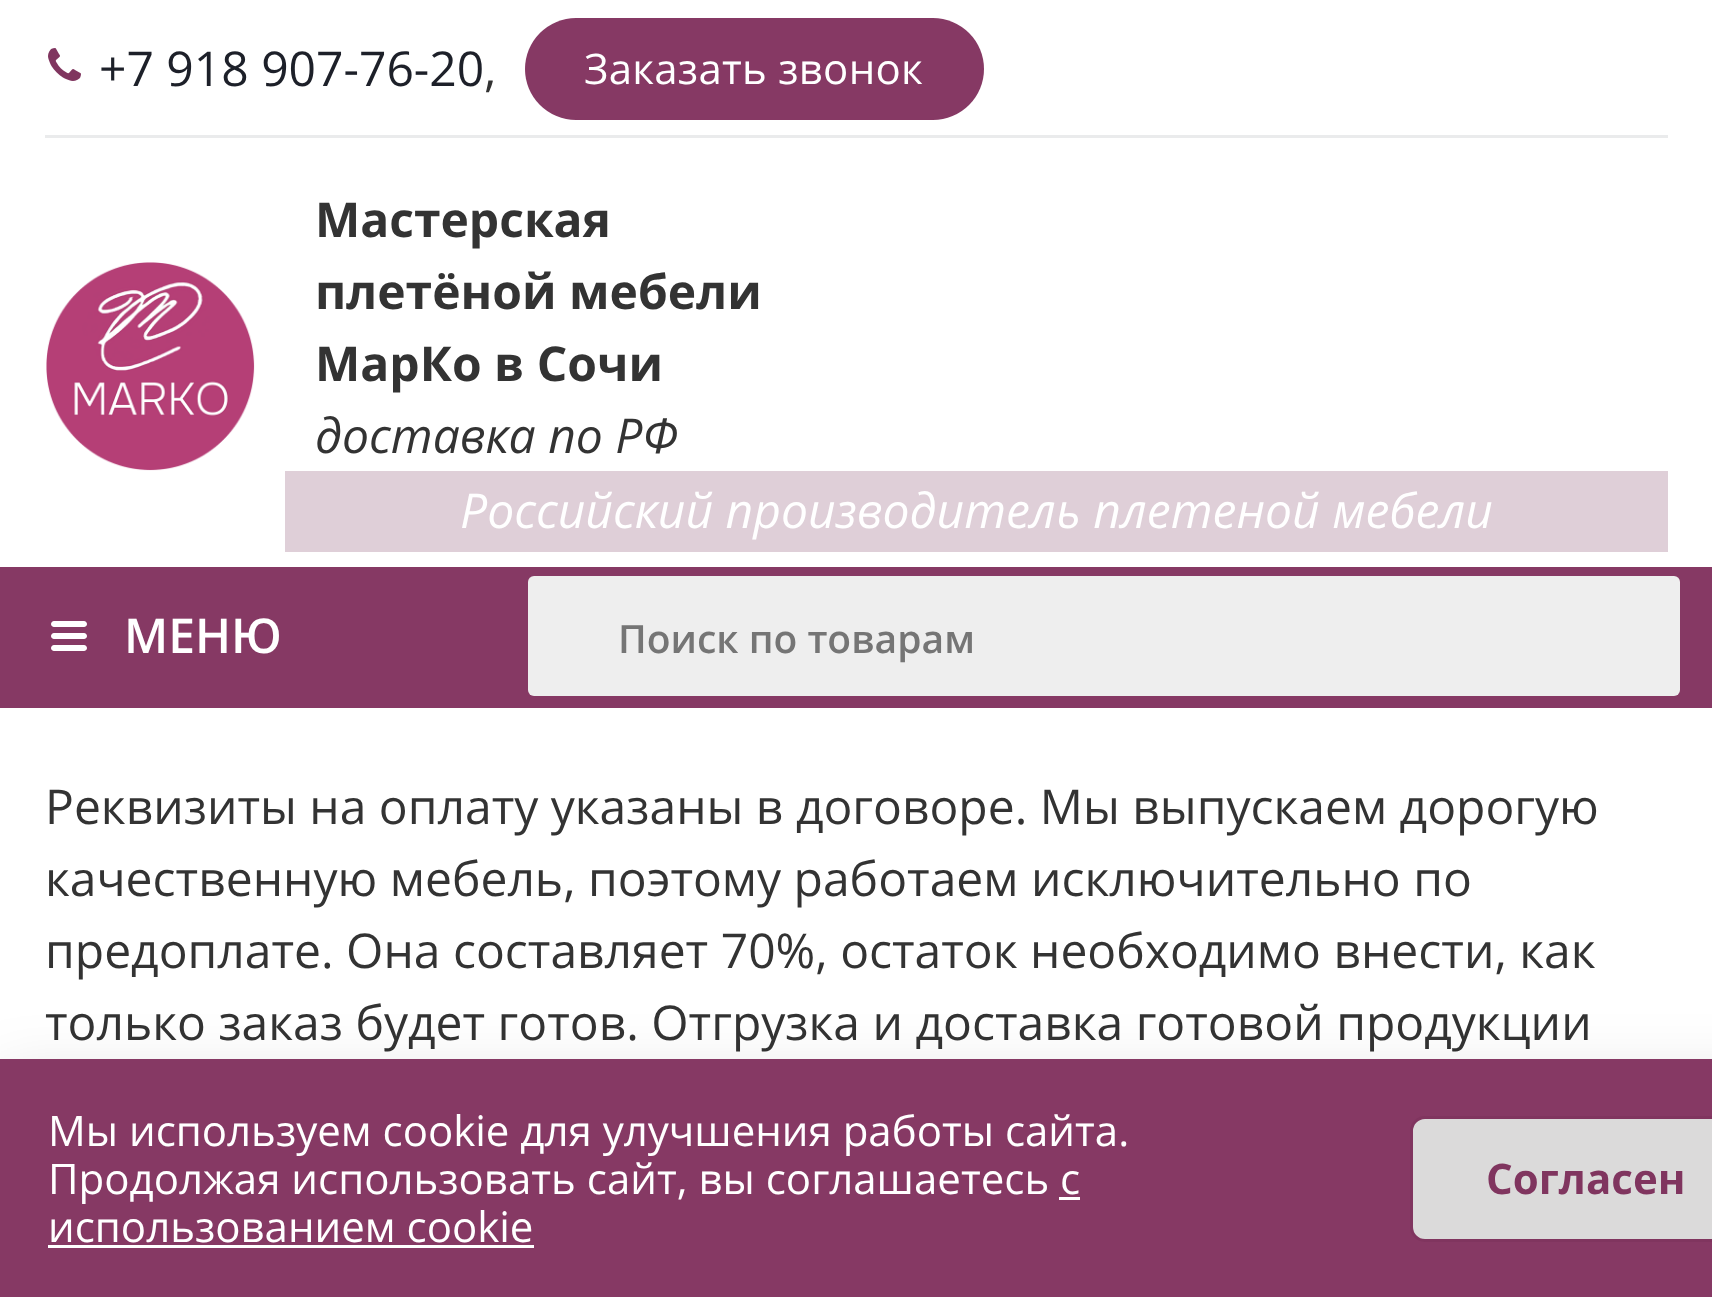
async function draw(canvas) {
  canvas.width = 1712;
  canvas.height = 1297;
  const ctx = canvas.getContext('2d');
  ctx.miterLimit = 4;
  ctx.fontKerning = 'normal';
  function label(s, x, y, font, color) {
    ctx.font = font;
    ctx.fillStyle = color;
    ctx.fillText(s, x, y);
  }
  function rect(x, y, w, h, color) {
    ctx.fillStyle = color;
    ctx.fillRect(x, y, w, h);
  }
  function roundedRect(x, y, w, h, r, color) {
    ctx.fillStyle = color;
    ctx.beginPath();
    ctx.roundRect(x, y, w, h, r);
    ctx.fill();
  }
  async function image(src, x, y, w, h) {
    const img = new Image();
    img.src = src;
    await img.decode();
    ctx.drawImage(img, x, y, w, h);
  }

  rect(0, 0, 1712, 1297, '#fff');
  await image('assets/img1.png', 48, 48, 33, 33);
  label('+7 918 907-76-20', 99, 86, '48px Open Sans', '#1d2029');
  label(',', 484, 86, '48px Open Sans', '#333');
  roundedRect(525, 18, 459, 102, 51, '#863964');
  ctx.letterSpacing = '0.25px';
  label('Заказать звонок', 584, 84, '42px Open Sans', '#fff');
  rect(45, 135, 1623, 3, '#eaebec');
  await image('assets/img2.png', 46, 262, 209, 209);
  ctx.letterSpacing = '0px';
  label('Мастерская', 315, 237, 'bold 48px Open Sans', '#333');
  label('плетёной мебели', 315, 309, 'bold 48px Open Sans', '#333');
  label('МарКо в Сочи', 315, 381, 'bold 48px Open Sans', '#333');
  label('доставка по РФ', 315, 453, 'italic 48px Open Sans', '#333');
  rect(285, 471, 1383, 81, '#dfcfd8');
  label('Российский производитель плетеной мебели', 460, 528, 'italic 48px Open Sans', '#fff');
  rect(0, 567, 1712, 141, '#863964');
  await image('assets/img3.png', 51, 621, 36, 30);
  label('МЕНЮ', 124, 653, '600 48px Open Sans', '#fff');
  roundedRect(528, 576, 1152, 120, 6, '#eee');
  label('Поиск по товарам', 618, 653, '600 39px Open Sans', '#757575');
  label('Реквизиты на оплату указаны в договоре. Мы выпускаем дорогую', 45, 824, '48px Open Sans', '#333');
  label('качественную мебель, поэтому работаем исключительно по', 45, 896, '48px Open Sans', '#333');
  label('предоплате. Она составляет 70%, остаток необходимо внести, как', 45, 968, '48px Open Sans', '#333');
  label('только заказ будет готов. Отгрузка и доставка готовой продукции', 45, 1040, '48px Open Sans', '#333');
  ctx.fillStyle = '#0000001a';
  ctx.filter = 'blur(30px)';
  ctx.beginPath();
  ctx.rect(0, 1071, 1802, 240);
  ctx.fill();
  ctx.filter = 'none';
  rect(0, 1059, 1712, 238, '#863964');
  label('Мы используем cookie для улучшения работы сайта.', 48, 1146, '42px Open Sans', '#fff');
  label('Продолжая использовать сайт, вы соглашаетесь с', 48, 1194, '42px Open Sans', '#fff');
  label('использованием cookie', 48, 1242, '42px Open Sans', '#fff');
  rect(1059, 1197, 21, 3, '#fff');
  rect(48, 1245, 486, 3, '#fff');
  ctx.fillStyle = '#dbdada';
  ctx.beginPath();
  ctx.roundRect(1411.5, 1117.5, 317, 123, 13.5);
  ctx.fill();
  ctx.strokeStyle = '#80355f';
  ctx.lineWidth = 3;
  ctx.stroke();
  label('Согласен', 1486, 1194, 'bold 42px Open Sans', '#80355f');
}

draw(document.querySelector('canvas'));
